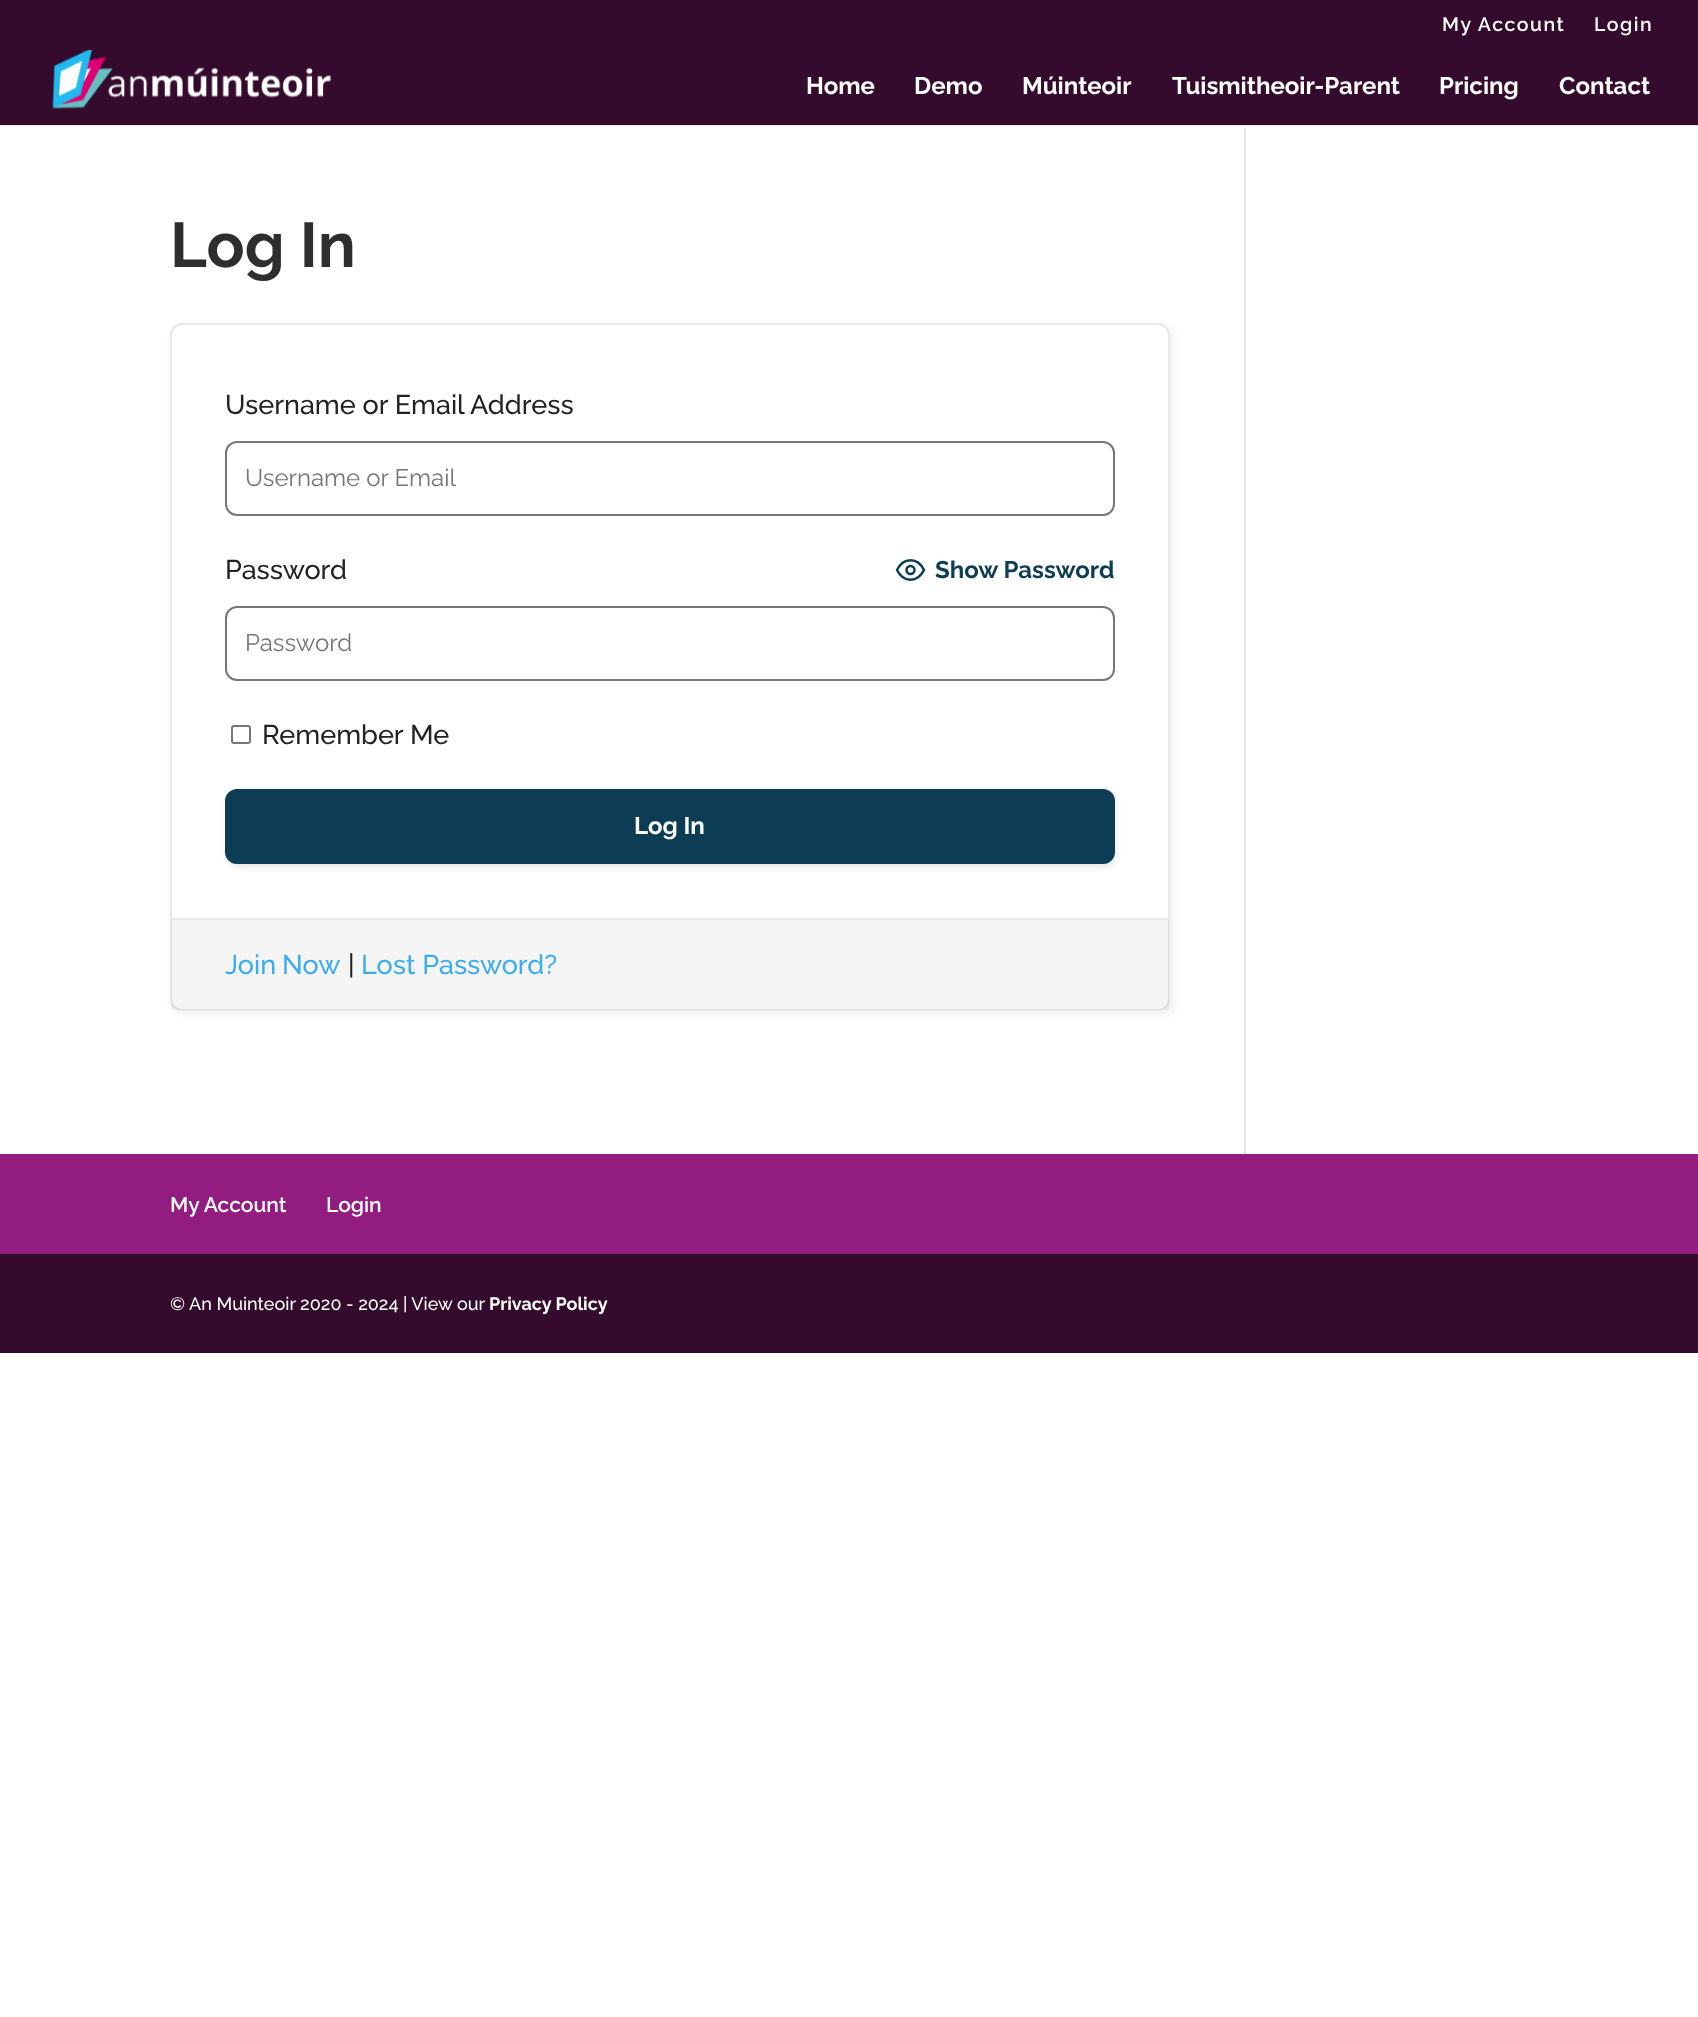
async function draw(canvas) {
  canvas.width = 1698;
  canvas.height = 2017;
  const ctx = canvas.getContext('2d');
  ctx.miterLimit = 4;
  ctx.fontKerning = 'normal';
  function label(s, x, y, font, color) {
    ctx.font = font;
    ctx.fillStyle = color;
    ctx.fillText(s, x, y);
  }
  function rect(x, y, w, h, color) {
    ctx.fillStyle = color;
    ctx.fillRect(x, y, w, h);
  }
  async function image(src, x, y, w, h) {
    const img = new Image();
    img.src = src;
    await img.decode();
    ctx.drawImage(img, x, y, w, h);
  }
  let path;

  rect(0, 0, 1698, 2017, '#fff');
  rect(0, 0, 1698, 125, '#340b2d');
  ctx.letterSpacing = '1.5px';
  label('My Account', 1442, 31, '600 19.5px Raleway', '#fff');
  label('Login', 1594, 31, '600 19.5px Raleway', '#fff');
  rect(0, 125, 1698, 1, '#e6e6e6');
  await image('assets/img1.png', 52, 50, 279, 59);
  ctx.letterSpacing = '0px';
  label('Home', 806, 94, 'bold 24px Raleway', '#fff');
  label('Demo', 914, 94, 'bold 24px Raleway', '#fff');
  label('Múinteoir', 1022, 94, 'bold 24px Raleway', '#fff');
  label('Tuismitheoir-Parent', 1172, 94, 'bold 24px Raleway', '#fff');
  label('Pricing', 1439, 94, 'bold 24px Raleway', '#fff');
  label('Contact', 1559, 94, 'bold 24px Raleway', '#fff');
  label('Log In', 170, 267, 'bold 63px Raleway', '#2e2e2e');
  ctx.fillStyle = '#00000012';
  ctx.filter = 'blur(5px)';
  ctx.beginPath();
  ctx.roundRect(173, 326, 1000, 688, 12);
  ctx.fill();
  ctx.filter = 'none';
  ctx.fillStyle = '#fff';
  ctx.beginPath();
  ctx.roundRect(171, 324, 998, 686, 11);
  ctx.fill();
  ctx.strokeStyle = '#e8e8e8';
  ctx.lineWidth = 2;
  ctx.stroke();
  label('Username or Email Address', 225, 414, '500 27px Raleway', '#222');
  ctx.beginPath();
  ctx.roundRect(226, 442, 888, 73, 11);
  ctx.strokeStyle = '#777';
  ctx.stroke();
  label('Username or Email', 245, 486, '24px Raleway', '#757575');
  label('Password', 225, 579, '500 27px Raleway', '#222');
  path = new Path2D('M897 570C903.5 557 917.5 557 924 570C917.5 583 903.5 583 897 570Z');
  ctx.strokeStyle = '#0c3d54';
  ctx.lineWidth = 2.5;
  ctx.lineCap = 'round';
  ctx.lineJoin = 'round';
  ctx.stroke(path);
  ctx.beginPath();
  ctx.arc(910.5, 570, 4, 0, 2 * Math.PI);
  ctx.stroke();
  label('Show Password', 935, 578, 'bold 24px Raleway', '#0c3d54');
  ctx.beginPath();
  ctx.roundRect(226, 607, 888, 73, 11);
  ctx.strokeStyle = '#777';
  ctx.lineWidth = 2;
  ctx.lineJoin = 'miter';
  ctx.stroke();
  label('Password', 245, 651, '24px Raleway', '#757575');
  ctx.beginPath();
  ctx.roundRect(232, 726, 18, 17, 2);
  ctx.strokeStyle = '#767676';
  ctx.stroke();
  label('Remember Me', 262, 744, '500 27px Raleway', '#222');
  ctx.fillStyle = '#0000001a';
  ctx.filter = 'blur(3px)';
  ctx.beginPath();
  ctx.roundRect(227, 792, 889, 75, 12);
  ctx.fill();
  ctx.filter = 'none';
  ctx.fillStyle = '#0c3d54';
  ctx.beginPath();
  ctx.roundRect(226, 790, 888, 73, 11);
  ctx.fill();
  ctx.strokeStyle = '#0c3d54';
  ctx.stroke();
  label('Log In', 634, 834, 'bold 24px Raleway', '#fff');
  rect(171, 920, 998, 90, '#0000000a');
  rect(171, 918, 998, 2, '#e8e8e8');
  ctx.wordSpacing = '-1px';
  label('Join Now', 225, 974, '500 27px Raleway', '#3aacf2');
  ctx.wordSpacing = '0px';
  label('|', 348, 974, '500 27px Raleway', '#222');
  label('Lost Password?', 361, 974, '500 27px Raleway', '#3aacf2');
  rect(1244, 128, 2, 1026, '#e2e2e2');
  rect(0, 1154, 1698, 100, '#931c80');
  label('My Account', 170, 1212, '600 21px Raleway', '#fff');
  label('Login', 326, 1212, '600 21px Raleway', '#fff');
  rect(0, 1254, 1698, 99, '#340b2d');
  label('© An Muinteoir 2020 - 2024 | View our', 170, 1310, '500 18px Raleway', '#fff');
  label('Privacy Policy', 489, 1310, 'bold 18px Raleway', '#fff');
}

draw(document.querySelector('canvas'));
